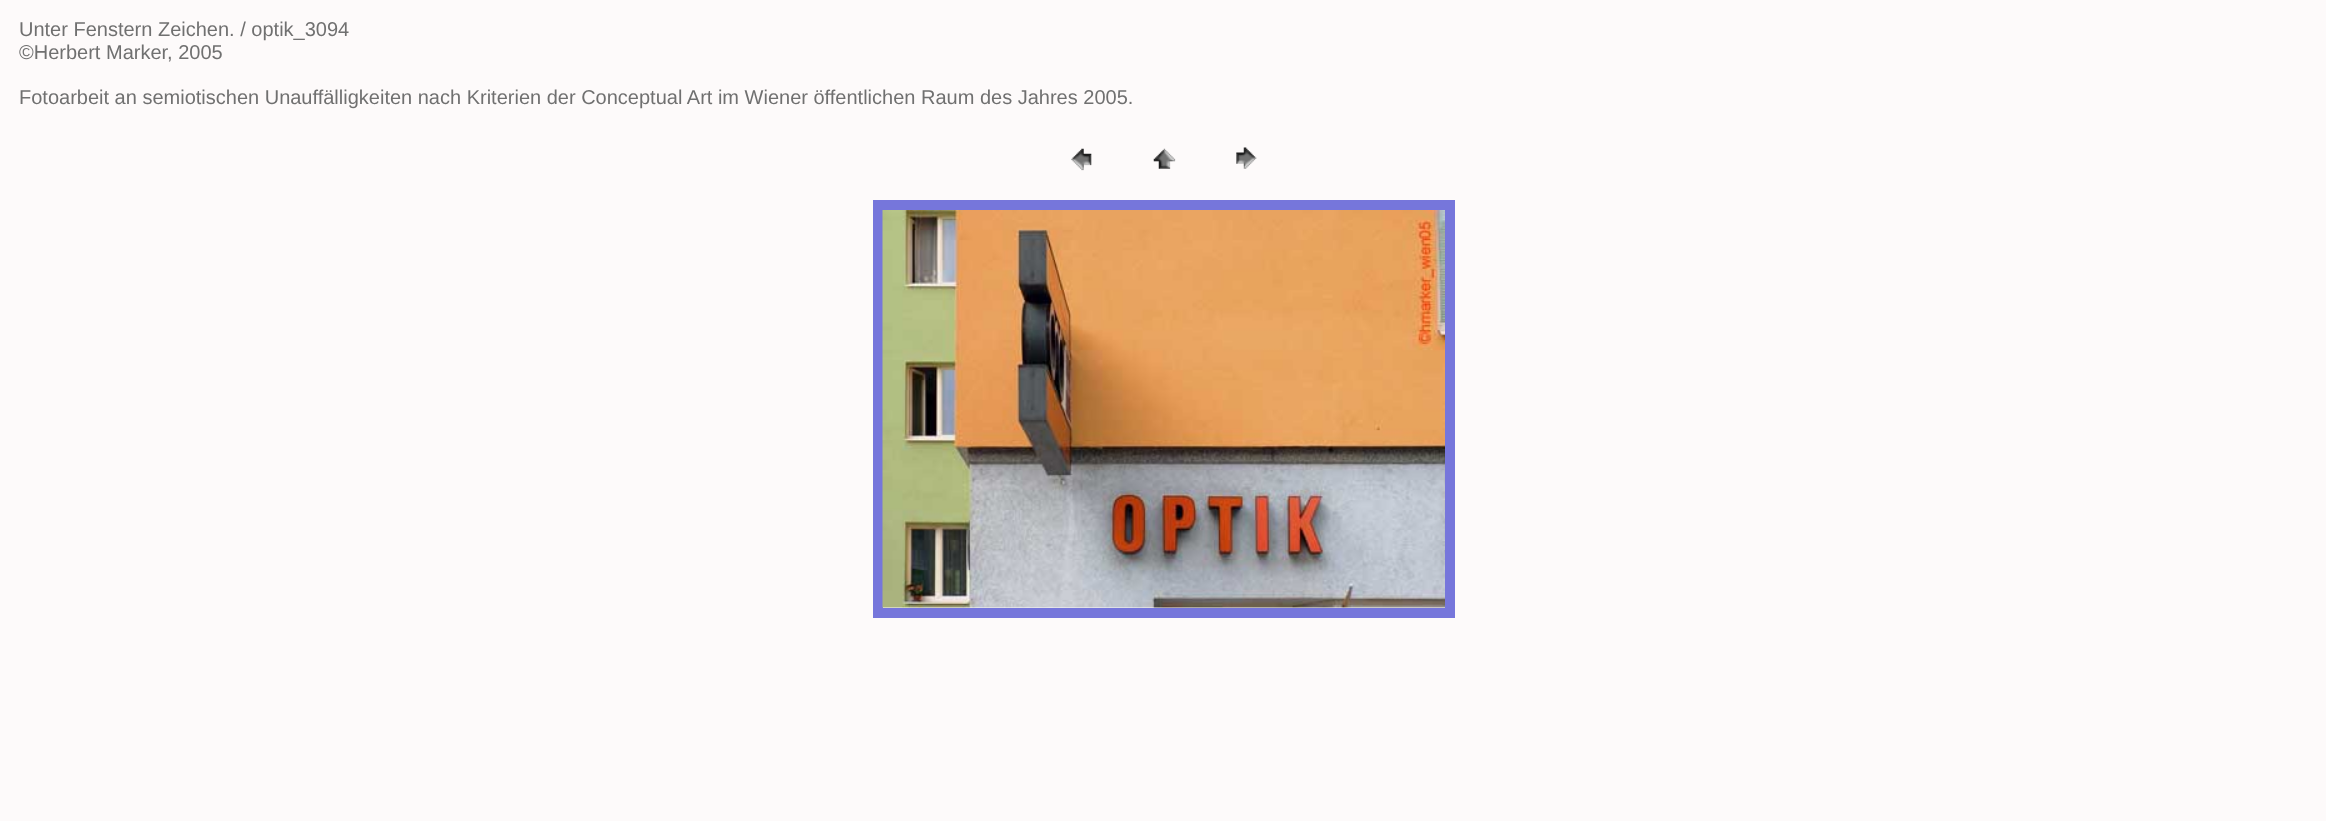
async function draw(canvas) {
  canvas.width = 2326;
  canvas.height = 821;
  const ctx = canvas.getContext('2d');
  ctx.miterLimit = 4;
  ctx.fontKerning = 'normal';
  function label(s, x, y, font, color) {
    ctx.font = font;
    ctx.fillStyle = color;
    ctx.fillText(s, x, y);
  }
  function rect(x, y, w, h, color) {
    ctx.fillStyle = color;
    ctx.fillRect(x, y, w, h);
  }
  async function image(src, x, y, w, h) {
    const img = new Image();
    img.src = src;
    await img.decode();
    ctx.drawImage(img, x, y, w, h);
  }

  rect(0, 0, 2326, 821, '#fdfafa');
  label('Unter Fenstern Zeichen. / optik_3094', 19, 36, '20px Liberation Sans', '#707070');
  label('©Herbert Marker, 2005', 19, 59, '20px Liberation Sans', '#707070');
  label('Fotoarbeit an semiotischen Unauffälligkeiten nach Kriterien der Conceptual Art im Wiener öffentlichen Raum des Jahres 2005.', 19, 104, '20px Liberation Sans', '#707070');
  await image('assets/img1.png', 1071, 148, 21, 23);
  await image('assets/img2.png', 1153, 148, 23, 21);
  await image('assets/img3.png', 1236, 147, 21, 22);
  ctx.strokeStyle = '#7676db';
  ctx.lineWidth = 10;
  ctx.strokeRect(878, 205, 572, 408);
  await image('assets/img4.png', 882, 210, 563, 398);
}

draw(document.querySelector('canvas'));
